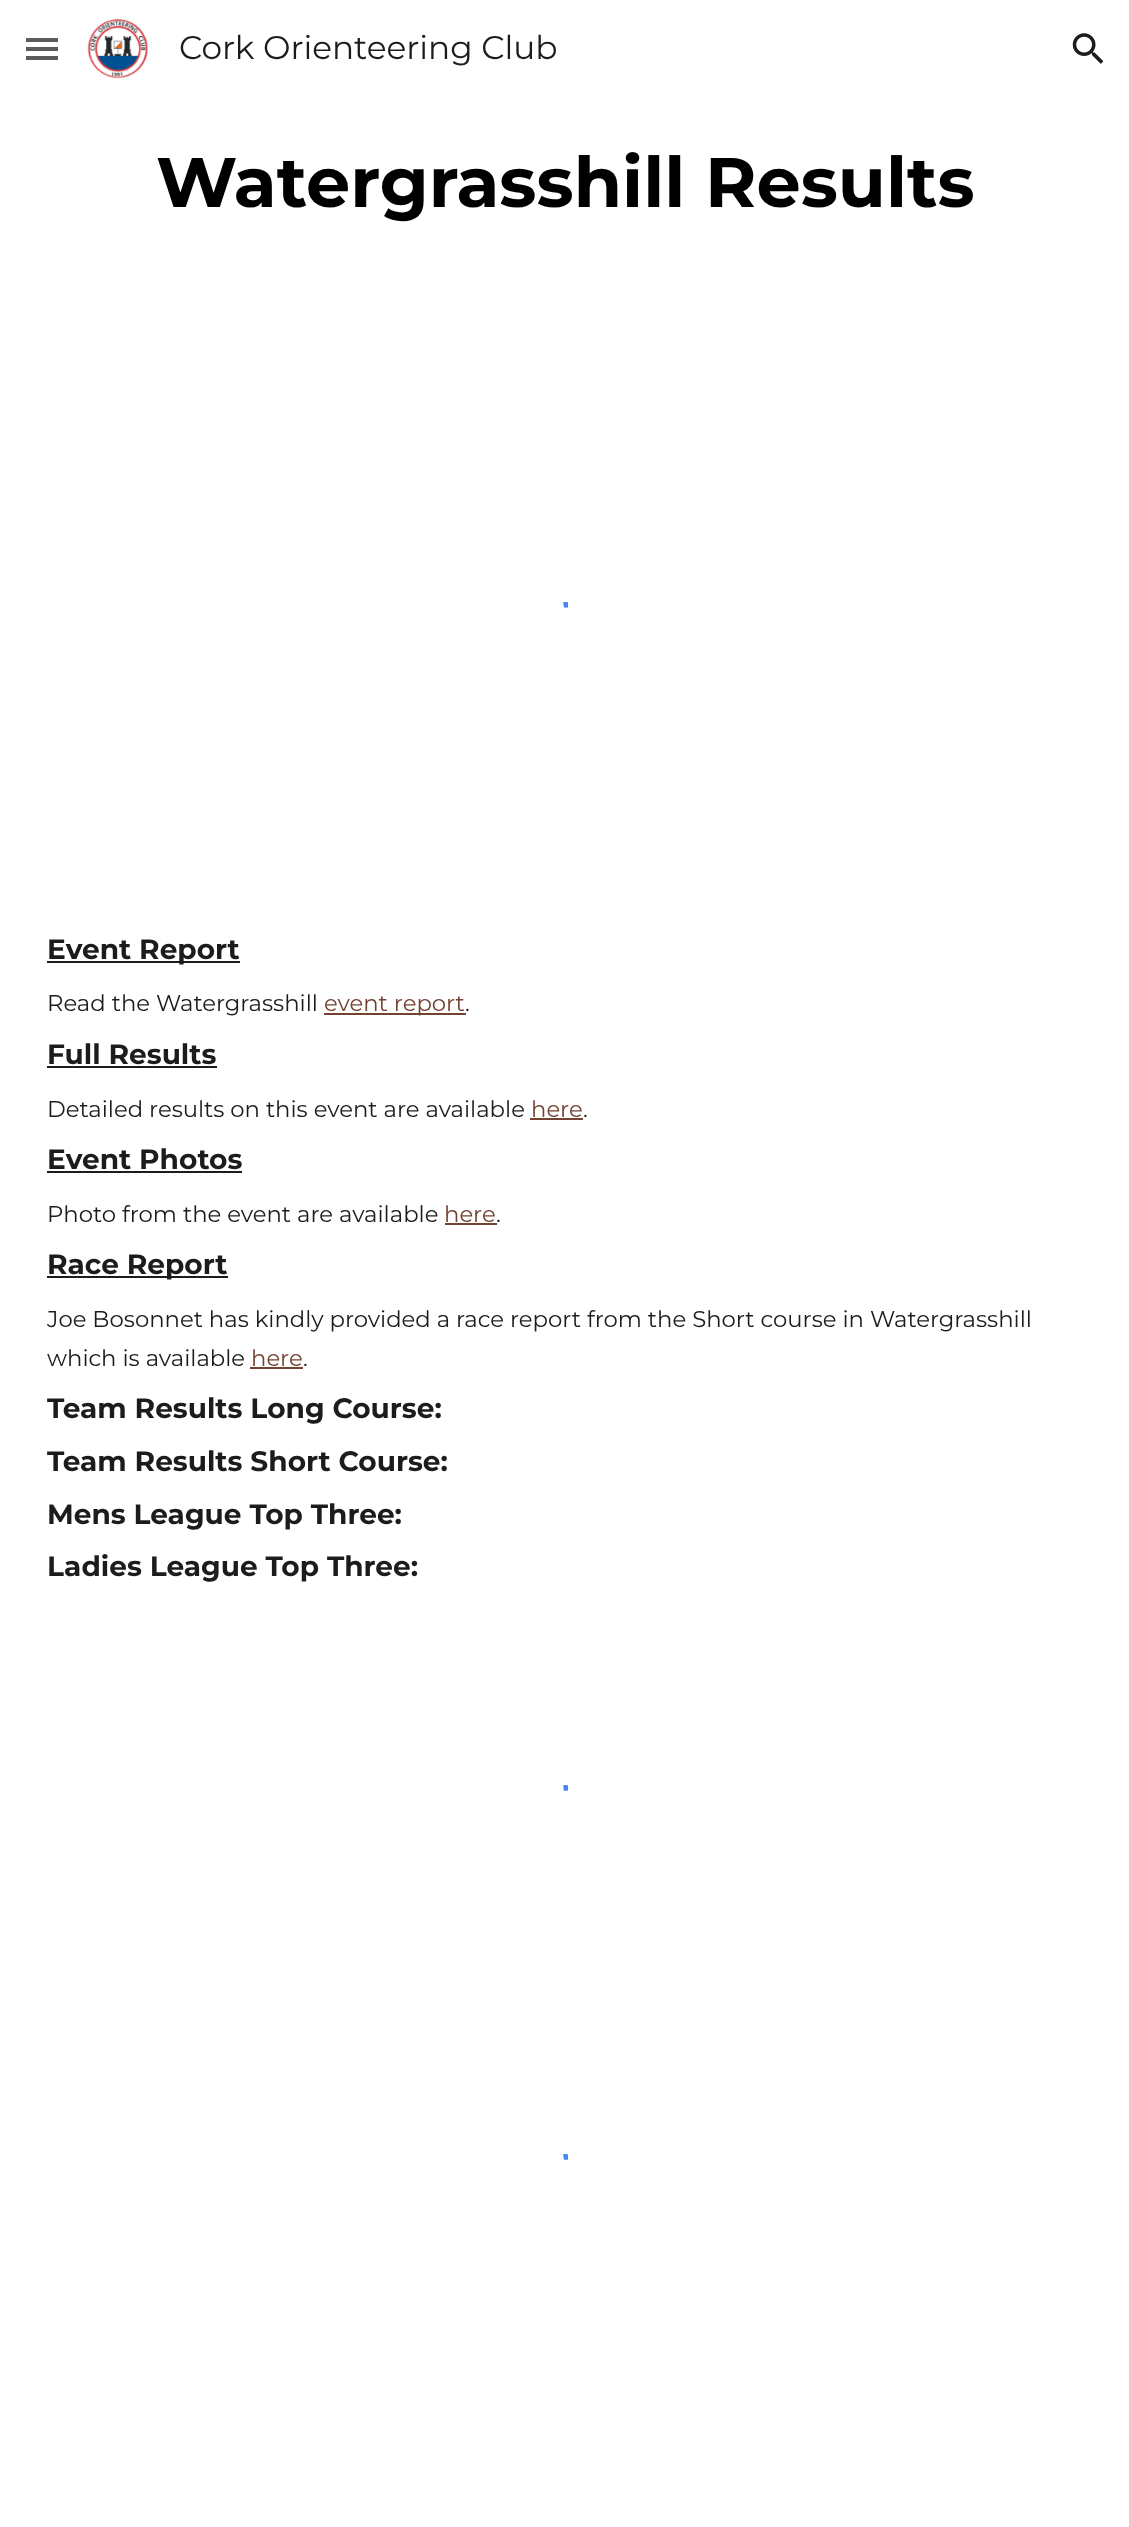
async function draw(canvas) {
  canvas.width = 1129;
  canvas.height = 2527;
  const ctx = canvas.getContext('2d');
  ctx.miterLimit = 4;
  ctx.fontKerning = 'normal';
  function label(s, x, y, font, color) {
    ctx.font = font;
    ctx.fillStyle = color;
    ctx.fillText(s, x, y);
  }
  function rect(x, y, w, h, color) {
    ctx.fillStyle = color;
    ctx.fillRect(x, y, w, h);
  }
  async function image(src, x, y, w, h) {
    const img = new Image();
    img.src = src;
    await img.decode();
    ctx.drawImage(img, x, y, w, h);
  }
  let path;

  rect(0, 0, 1129, 2527, '#fff');
  rect(26, 38, 32, 4, '#5c5c5c');
  rect(26, 47, 32, 4, '#5c5c5c');
  rect(26, 56, 32, 4, '#5c5c5c');
  await image('assets/img1.png', 87, 19, 61, 60);
  label('Cork Orienteering Club', 179, 59, '32.75px Montserrat', '#1c1c1c');
  await image('assets/img2.png', 1072, 33, 32, 31);
  label('Watergrasshill Results', 156, 207, 'bold 70px Montserrat', '#000');
  ctx.save();
  ctx.beginPath();
  ctx.rect(541, 602, 24, 49);
  ctx.clip();
  path = new Path2D('M563.5 604.5C592 602 596 645.5 567 648');
  ctx.strokeStyle = '#4486f4';
  ctx.lineWidth = 5.2;
  ctx.stroke(path);
  ctx.restore();
  ctx.save();
  ctx.beginPath();
  ctx.rect(564, 602, 4, 49);
  ctx.clip();
  path = new Path2D('M550 642C544.5 637 542.5 629.5 544 622C549 596.5 587 600.5 587 626.5C587 632.5 585 638 580.5 642');
  ctx.strokeStyle = '#4486f4';
  ctx.lineWidth = 5.2;
  ctx.stroke(path);
  ctx.restore();
  ctx.save();
  ctx.beginPath();
  ctx.rect(565, 602, 25, 49);
  ctx.clip();
  path = new Path2D('M563.5 648C534.5 645.5 538.5 602 567 604.5M563.5 648C534.5 645.5 538.5 602 567 604.5M563.5 648C534.5 645.5 538.5 602 567 604.5M563.5 648C534.5 645.5 538.5 602 567 604.5');
  ctx.strokeStyle = '#4486f4';
  ctx.lineWidth = 5.2;
  ctx.stroke(path);
  ctx.restore();
  rect(47, 961, 193, 2, '#1c1c1c');
  label('Event Report', 47, 959, 'bold 28px Montserrat', '#1c1c1c');
  label('Read the Watergrasshill', 47, 1011, '22.75px Montserrat', '#1c1c1c');
  rect(324, 1013, 142, 2, '#734332');
  label('event report', 324, 1011, '22.75px Montserrat', '#734332');
  label('.', 465, 1011, '22.75px Montserrat', '#1c1c1c');
  label('Full Results', 47, 1064, 'bold 28px Montserrat', '#1c1c1c');
  rect(47, 1066, 170, 2, '#1c1c1c');
  label('Detailed results on this event are available', 47, 1117, '22.75px Montserrat', '#1c1c1c');
  label('here', 531, 1117, '22.75px Montserrat', '#734332');
  rect(530, 1118, 53, 2, '#734332');
  label('.', 583, 1117, '22.75px Montserrat', '#1c1c1c');
  label('Event Photos', 47, 1169, 'bold 28px Montserrat', '#1c1c1c');
  rect(47, 1171, 195, 2, '#1c1c1c');
  label('Photo from the event are available', 47, 1222, '22.75px Montserrat', '#1c1c1c');
  label('here', 444, 1222, '22.75px Montserrat', '#734332');
  rect(445, 1223, 52, 2, '#734332');
  label('.', 496, 1222, '22.75px Montserrat', '#1c1c1c');
  rect(47, 1276, 181, 2, '#1c1c1c');
  label('Race Report', 47, 1274, 'bold 28px Montserrat', '#1c1c1c');
  label('Joe Bosonnet has kindly provided a race report from the Short course in Watergrasshill', 47, 1327, '22.75px Montserrat', '#1c1c1c');
  label('which is available', 47, 1366, '22.75px Montserrat', '#1c1c1c');
  label('here', 251, 1366, '22.75px Montserrat', '#734332');
  rect(250, 1367, 53, 2, '#734332');
  label('.', 303, 1366, '22.75px Montserrat', '#1c1c1c');
  label('Team Results Long Course:', 47, 1418, 'bold 28px Montserrat', '#1c1c1c');
  label('Team Results Short Course:', 47, 1471, 'bold 28px Montserrat', '#1c1c1c');
  label('Mens League Top Three:', 47, 1524, 'bold 28px Montserrat', '#1c1c1c');
  label('Ladies League Top Three:', 47, 1576, 'bold 28px Montserrat', '#1c1c1c');
  ctx.save();
  ctx.beginPath();
  ctx.rect(541, 1785, 24, 49);
  ctx.clip();
  path = new Path2D('M563.5 1788C592 1785.5 596 1829.5 567 1832');
  ctx.strokeStyle = '#4486f4';
  ctx.lineWidth = 5.2;
  ctx.stroke(path);
  ctx.restore();
  ctx.save();
  ctx.beginPath();
  ctx.rect(564, 1785, 4, 49);
  ctx.clip();
  path = new Path2D('M550 1825C544.5 1820 542.5 1812.5 544 1805C549 1779.5 587 1783.5 587 1809.5C587 1815.5 585 1821 580.5 1825');
  ctx.strokeStyle = '#4486f4';
  ctx.lineWidth = 5.2;
  ctx.stroke(path);
  ctx.restore();
  ctx.save();
  ctx.beginPath();
  ctx.rect(565, 1785, 25, 49);
  ctx.clip();
  path = new Path2D('M563.5 1832C534.5 1829.5 538.5 1785.5 567 1788');
  ctx.strokeStyle = '#4486f4';
  ctx.lineWidth = 5.2;
  ctx.stroke(path);
  ctx.restore();
  ctx.save();
  ctx.beginPath();
  ctx.rect(541, 2154, 24, 49);
  ctx.clip();
  path = new Path2D('M563.5 2156.5C592 2154 596 2197.5 567 2200');
  ctx.strokeStyle = '#4486f4';
  ctx.lineWidth = 5.2;
  ctx.stroke(path);
  ctx.restore();
  ctx.save();
  ctx.beginPath();
  ctx.rect(564, 2154, 4, 49);
  ctx.clip();
  path = new Path2D('M550 2194C545.5 2190 543.5 2184.5 543.5 2179C543.5 2152.5 581.5 2149 586.5 2174.5C588 2181.5 586 2189 580.5 2194');
  ctx.strokeStyle = '#4486f4';
  ctx.lineWidth = 5.2;
  ctx.stroke(path);
  ctx.restore();
  ctx.save();
  ctx.beginPath();
  ctx.rect(565, 2154, 25, 49);
  ctx.clip();
  path = new Path2D('M563.5 2200C534.5 2197.5 538.5 2154 567 2156.5M563.5 2200C534.5 2197.5 538.5 2154 567 2156.5M563.5 2200C534.5 2197.5 538.5 2154 567 2156.5M563.5 2200C534.5 2197.5 538.5 2154 567 2156.5');
  ctx.strokeStyle = '#4486f4';
  ctx.lineWidth = 5.2;
  ctx.stroke(path);
  ctx.restore();
}

draw(document.querySelector('canvas'));
